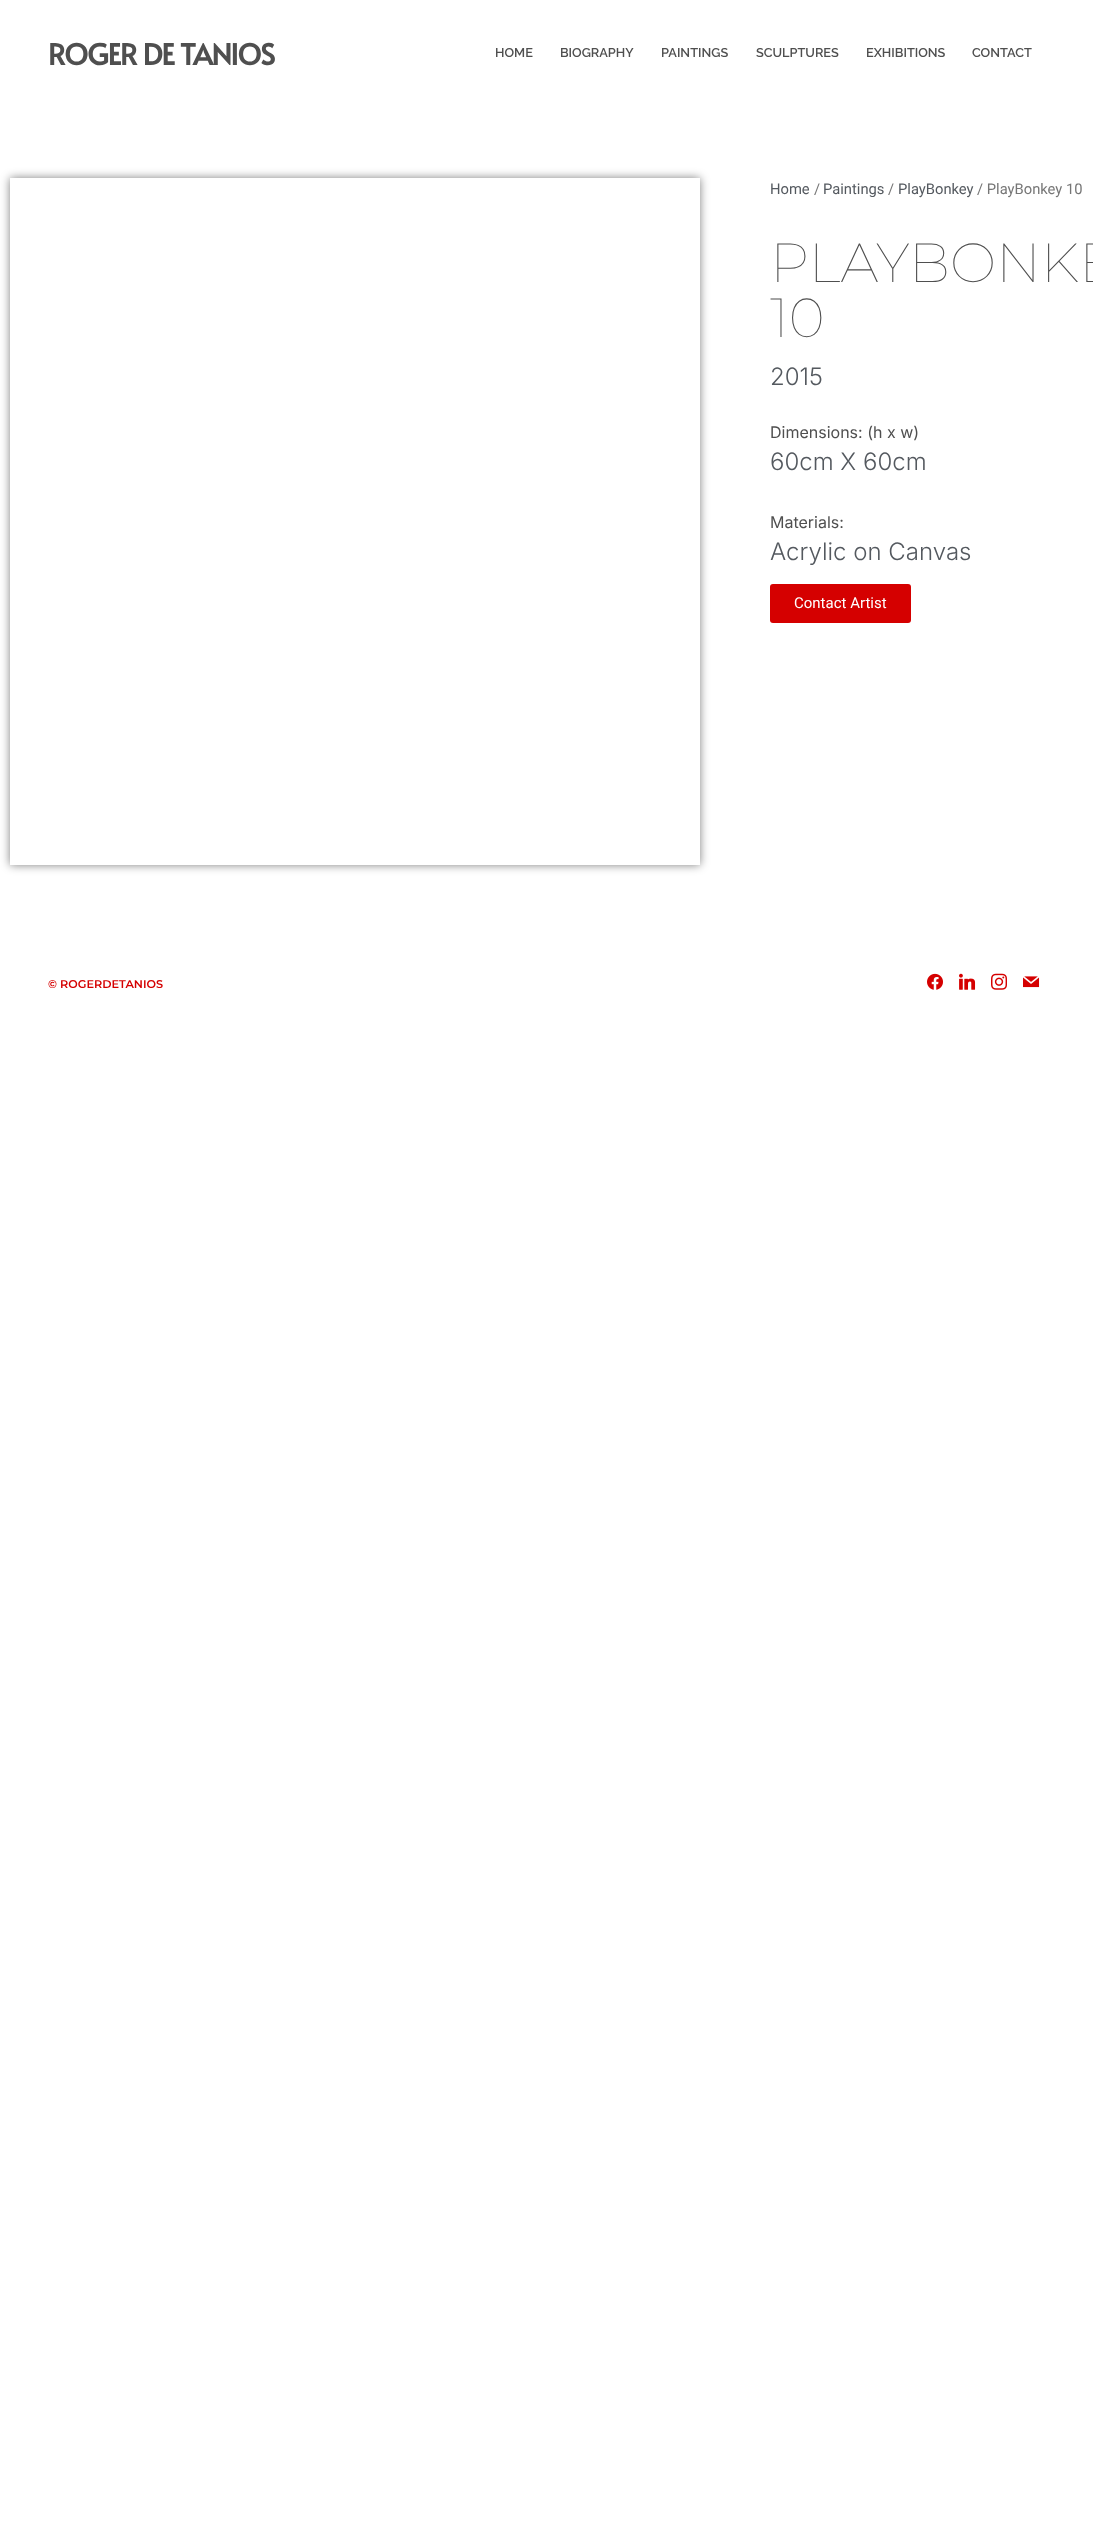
async function draw(canvas) {
  canvas.width = 1093;
  canvas.height = 2532;
  const ctx = canvas.getContext('2d');
  ctx.miterLimit = 4;
  ctx.fontKerning = 'normal';
  function label(s, x, y, font, color) {
    ctx.font = font;
    ctx.fillStyle = color;
    ctx.fillText(s, x, y);
  }
  function rect(x, y, w, h, color) {
    ctx.fillStyle = color;
    ctx.fillRect(x, y, w, h);
  }
  function roundedRect(x, y, w, h, r, color) {
    ctx.fillStyle = color;
    ctx.beginPath();
    ctx.roundRect(x, y, w, h, r);
    ctx.fill();
  }
  async function image(src, x, y, w, h) {
    const img = new Image();
    img.src = src;
    await img.decode();
    ctx.drawImage(img, x, y, w, h);
  }
  let path;

  rect(0, 0, 1093, 2532, '#fff');
  ctx.letterSpacing = '-1px';
  label('ROGER DE TANIOS', 48, 65, 'bold 28.75px Alata', '#4f4f4f');
  ctx.letterSpacing = '0px';
  label('HOME', 495, 57, '600 12.75px Raleway', '#4f4f4f');
  label('BIOGRAPHY', 560, 57, '600 12.75px Raleway', '#4f4f4f');
  label('PAINTINGS', 661, 57, '600 12.75px Raleway', '#4f4f4f');
  label('SCULPTURES', 756, 57, '600 12.75px Raleway', '#4f4f4f');
  label('EXHIBITIONS', 866, 57, '600 12.75px Raleway', '#4f4f4f');
  label('CONTACT', 972, 57, '600 12.75px Raleway', '#4f4f4f');
  ctx.save();
  path = new Path2D('M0 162H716V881H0ZM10 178H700V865H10Z');
  ctx.clip(path, 'evenodd');
  ctx.fillStyle = '#00000080';
  ctx.filter = 'blur(5px)';
  ctx.beginPath();
  ctx.rect(10, 178, 690, 687);
  ctx.fill();
  ctx.filter = 'none';
  ctx.restore();
  label('Home', 770, 194, '14.75px Roboto', '#54595f');
  label('/', 814, 194, '14.75px Roboto', '#767676');
  label('Paintings', 823, 194, '14.75px Roboto', '#54595f');
  label('/', 888, 194, '14.75px Roboto', '#767676');
  label('PlayBonkey', 898, 194, '14.75px Roboto', '#54595f');
  label('/ PlayBonkey 10', 977, 194, '14.75px Roboto', '#767676');
  label('PLAYBONKE', 770, 282, '100 55px Montserrat', '#4f4f4f');
  label('10', 770, 337, '100 55px Montserrat', '#4f4f4f');
  label('2015', 770, 385, '300 24px Inter', '#54595f');
  label('Dimensions: (h x w)', 770, 438, '16px Inter', '#4f4f4f');
  label('60cm X 60cm', 770, 470, '300 24px Inter', '#54595f');
  label('Materials:', 770, 528, '16px Inter', '#4f4f4f');
  label('Acrylic on Canvas', 770, 560, '300 24px Inter', '#54595f');
  roundedRect(770, 584, 141, 39, 3, '#d50000');
  label('Contact Artist', 794, 608, '15px Roboto', '#fff');
  label('© ROGERDETANIOS', 48, 988, '600 11.25px Montserrat', '#d50000');
  await image('assets/img1.png', 927, 973, 16, 17);
  await image('assets/img2.png', 959, 973, 17, 17);
  await image('assets/img3.png', 991, 973, 16, 17);
  await image('assets/img4.png', 1023, 976, 17, 12);
}

draw(document.querySelector('canvas'));
